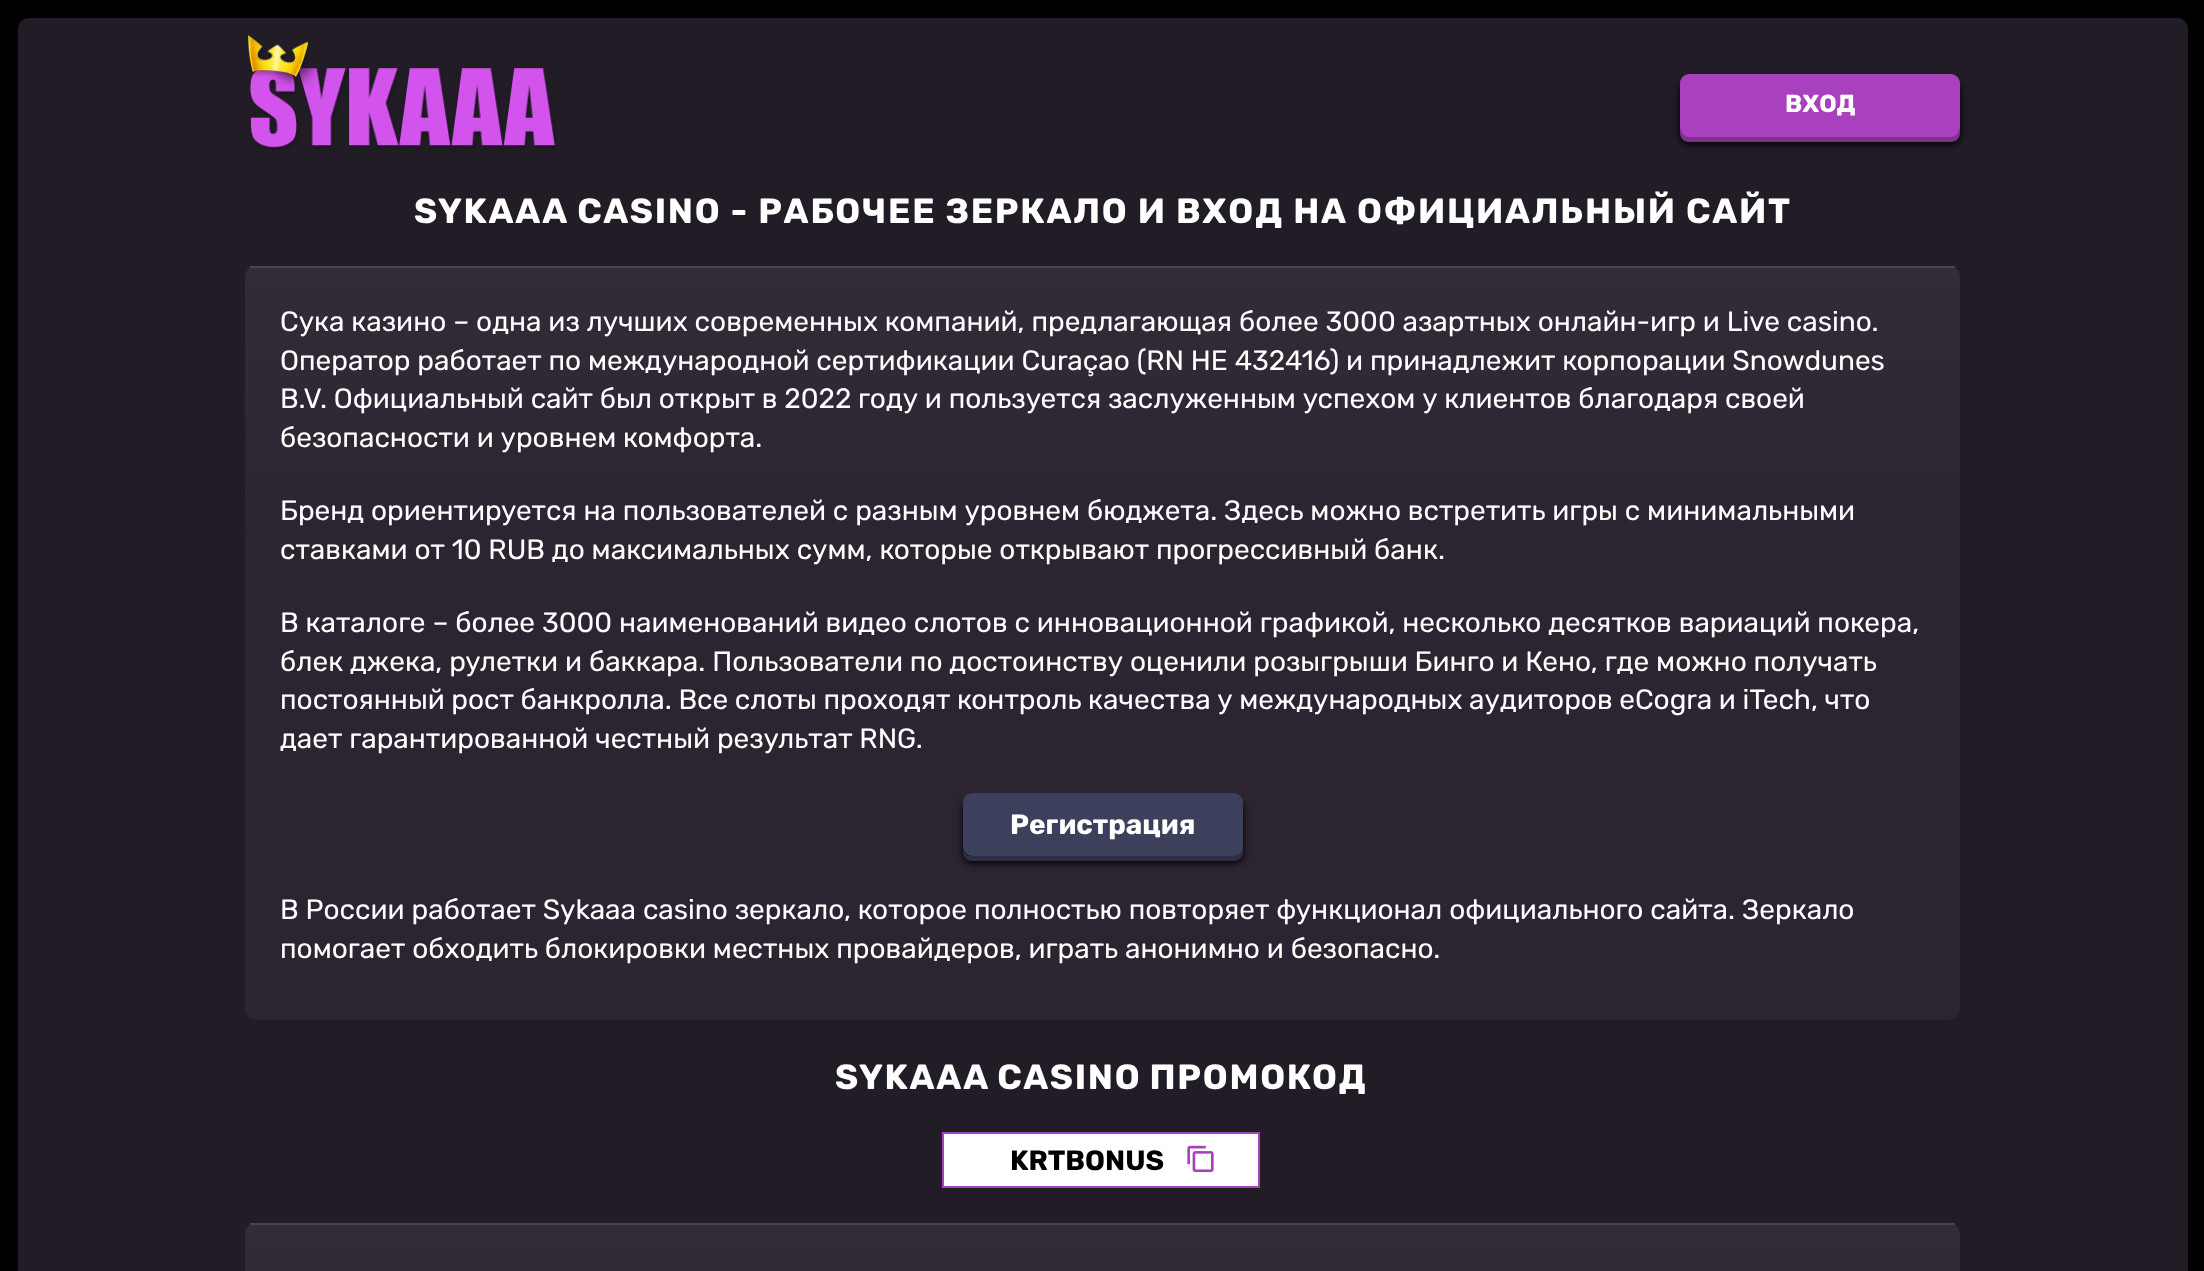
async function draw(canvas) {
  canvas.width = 2204;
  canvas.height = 1271;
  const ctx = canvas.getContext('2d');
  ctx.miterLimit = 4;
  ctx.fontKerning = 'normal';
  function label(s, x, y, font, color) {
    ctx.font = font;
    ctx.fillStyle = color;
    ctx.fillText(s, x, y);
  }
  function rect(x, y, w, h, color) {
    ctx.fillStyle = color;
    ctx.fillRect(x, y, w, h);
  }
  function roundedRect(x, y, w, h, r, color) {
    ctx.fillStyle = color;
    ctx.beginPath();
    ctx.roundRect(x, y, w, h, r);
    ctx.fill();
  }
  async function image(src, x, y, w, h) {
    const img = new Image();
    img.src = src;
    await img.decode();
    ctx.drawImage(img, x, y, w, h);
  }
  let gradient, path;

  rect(0, 0, 2204, 1271, '#000');
  roundedRect(18, 18, 2170, 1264, 11, '#211c25');
  await image('assets/img1.png', 248, 35, 308, 115);
  ctx.fillStyle = '#000';
  ctx.filter = 'blur(3.5px)';
  ctx.beginPath();
  ctx.roundRect(1680, 81, 280, 63, 9);
  ctx.fill();
  ctx.filter = 'none';
  ctx.fillStyle = '#7d318d';
  path = new Path2D('M1680 128V133C1680 138 1684 142 1689 142H1951C1956 142 1960 138 1960 133V128C1960 133 1956 136 1951 136H1689C1684 136 1680 133 1680 128Z');
  ctx.fill(path);
  roundedRect(1680, 74, 280, 63, 9, '#a940be');
  label('ВХОД', 1785, 112, 'bold 24.5px Rubik', '#fff');
  ctx.letterSpacing = '1.75px';
  label('SYKAAA CASINO - РАБОЧЕЕ ЗЕРКАЛО И ВХОД НА ОФИЦИАЛЬНЫЙ САЙТ', 414, 223, 'bold 35px Rubik', '#fff');
  ctx.save();
  ctx.beginPath();
  ctx.roundRect(245, 266, 1715, 754, 11);
  ctx.clip();
  gradient = ctx.createLinearGradient(1103, 268, 1103, 1020);
  gradient.addColorStop(0, '#342b39');
  gradient.addColorStop(0.35, '#2c2430');
  ctx.fillStyle = gradient;
  ctx.beginPath();
  ctx.roundRect(245, 268, 1715, 752, [0, 0, 11, 11]);
  ctx.fill();
  ctx.restore();
  rect(250, 266, 1705, 2, '#4e4156');
  ctx.letterSpacing = '0px';
  label('Сука казино – одна из лучших современных компаний, предлагающая более 3000 азартных онлайн-игр и Live casino.', 280, 331, '28px Rubik', '#fff');
  label('Оператор работает по международной сертификации Curaçao (RN HE 432416) и принадлежит корпорации Snowdunes', 280, 370, '28px Rubik', '#fff');
  ctx.wordSpacing = '-0.1px';
  label('B.V. Официальный сайт был открыт в 2022 году и пользуется заслуженным успехом у клиентов благодаря своей', 280, 408, '28px Rubik', '#fff');
  ctx.wordSpacing = '0px';
  label('безопасности и уровнем комфорта.', 280, 447, '28px Rubik', '#fff');
  label('Бренд ориентируется на пользователей с разным уровнем бюджета. Здесь можно встретить игры с минимальными', 280, 520, '28px Rubik', '#fff');
  label('ставками от 10 RUB до максимальных сумм, которые открывают прогрессивный банк.', 280, 559, '28px Rubik', '#fff');
  label('В каталоге – более 3000 наименований видео слотов с инновационной графикой, несколько десятков вариаций покера,', 280, 632, '28px Rubik', '#fff');
  label('блек джека, рулетки и баккара. Пользователи по достоинству оценили розыгрыши Бинго и Кено, где можно получать', 280, 671, '28px Rubik', '#fff');
  ctx.wordSpacing = '-0.25px';
  label('постоянный рост банкролла. Все слоты проходят контроль качества у международных аудиторов eCogra и iTech, что', 280, 709, '28px Rubik', '#fff');
  ctx.wordSpacing = '0px';
  label('дает гарантированной честный результат RNG.', 280, 748, '28px Rubik', '#fff');
  ctx.fillStyle = '#000';
  ctx.filter = 'blur(3.5px)';
  ctx.beginPath();
  ctx.roundRect(963, 800, 280, 63, 9);
  ctx.fill();
  ctx.filter = 'none';
  ctx.fillStyle = '#2d3048';
  path = new Path2D('M963 850V852C963 857 967 861 972 861H1234C1239 861 1243 857 1243 852V807L1242 804V847C1242 852 1239 856 1234 856H971C967 856 964 853 963 850Z');
  ctx.fill(path);
  roundedRect(963, 793, 280, 63, 9, '#3c405c');
  label('Регистрация', 1010, 834, 'bold 28px Rubik', '#fff');
  label('В России работает Sykaaa casino зеркало, которое полностью повторяет функционал официального сайта. Зеркало', 280, 919, '28px Rubik', '#fff');
  label('помогает обходить блокировки местных провайдеров, играть анонимно и безопасно.', 280, 958, '28px Rubik', '#fff');
  ctx.letterSpacing = '1.75px';
  ctx.wordSpacing = '-1px';
  label('SYKAAA CASINO ПРОМОКОД', 835, 1089, 'bold 35px Rubik', '#fff');
  ctx.beginPath();
  ctx.rect(943, 1133, 316, 54);
  ctx.fill();
  ctx.strokeStyle = '#a940be';
  ctx.lineWidth = 2;
  ctx.stroke();
  ctx.letterSpacing = '0px';
  ctx.wordSpacing = '0px';
  label('KRTBONUS', 1010, 1170, 'bold 28px Rubik', '#000');
  await image('assets/img2.png', 1187, 1145, 27, 28);
  ctx.save();
  ctx.beginPath();
  ctx.roundRect(245, 1223, 1715, 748, 11);
  ctx.clip();
  gradient = ctx.createLinearGradient(1103, 1225, 1103, 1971);
  gradient.addColorStop(0, '#342b39');
  gradient.addColorStop(0.35, '#2c2430');
  ctx.fillStyle = gradient;
  path = new Path2D('M245 1225H1960V1271C1960 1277 1955 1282 1949 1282H256C250 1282 245 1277 245 1271Z');
  ctx.fill(path);
  ctx.restore();
  rect(250, 1223, 1705, 2, '#4e4156');
}

draw(document.querySelector('canvas'));
